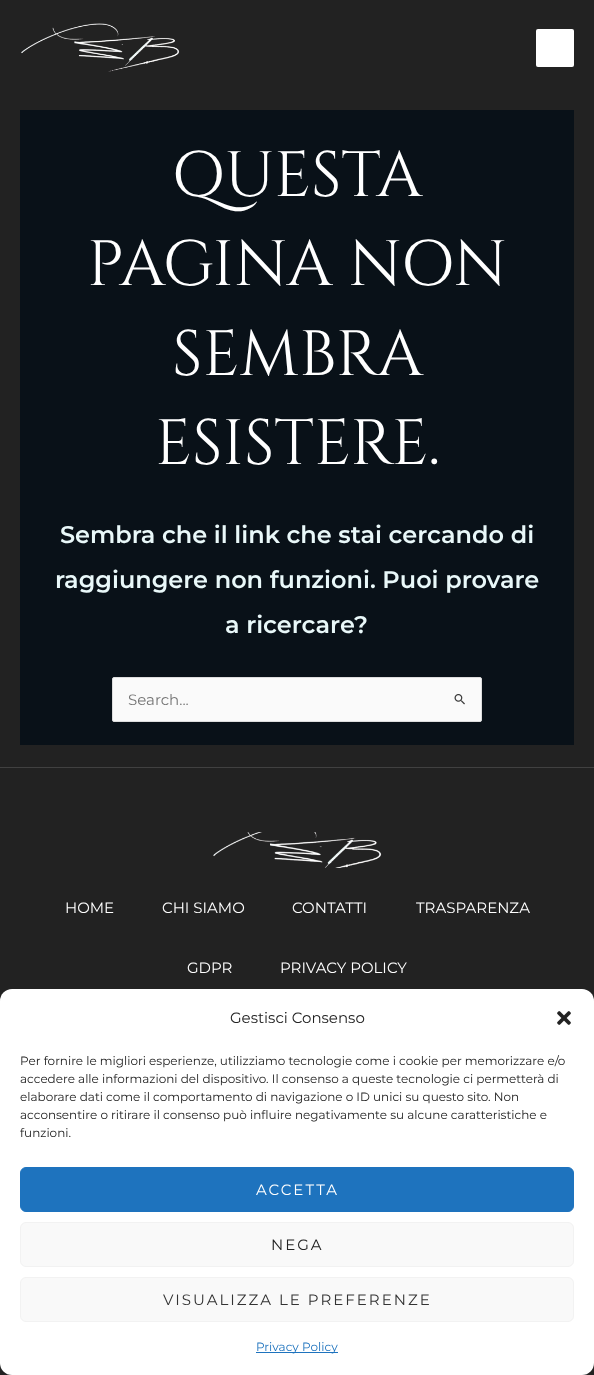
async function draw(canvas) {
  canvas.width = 594;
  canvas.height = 1375;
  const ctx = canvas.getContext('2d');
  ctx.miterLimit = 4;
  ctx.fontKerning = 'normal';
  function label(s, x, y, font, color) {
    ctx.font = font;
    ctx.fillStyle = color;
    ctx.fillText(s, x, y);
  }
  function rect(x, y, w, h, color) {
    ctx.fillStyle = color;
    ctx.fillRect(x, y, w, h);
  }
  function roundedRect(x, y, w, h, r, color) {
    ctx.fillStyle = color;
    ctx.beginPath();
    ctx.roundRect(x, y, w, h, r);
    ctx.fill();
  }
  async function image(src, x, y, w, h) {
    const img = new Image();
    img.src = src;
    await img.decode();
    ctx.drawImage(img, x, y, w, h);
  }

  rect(0, 0, 594, 1375, '#222');
  await image('assets/img1.png', 21, 23, 159, 49);
  roundedRect(536, 29, 38, 38, 2, '#fff');
  rect(20, 110, 554, 635, '#091118');
  label('QUESTA', 172, 196, '64px Cinzel', '#fff');
  label('PAGINA NON', 87, 285, '64px Cinzel', '#fff');
  label('SEMBRA', 172, 375, '64px Cinzel', '#fff');
  label('ESISTERE.', 155, 464, '64px Cinzel', '#fff');
  label('Sembra che il link che stai cercando di', 60, 543, '600 24px Montserrat', '#e9f8f9');
  label('raggiungere non funzioni. Puoi provare', 55, 588, '600 24px Montserrat', '#e9f8f9');
  label('a ricercare?', 225, 633, '600 24px Montserrat', '#e9f8f9');
  ctx.fillStyle = '#fafafa';
  ctx.beginPath();
  ctx.roundRect(112.5, 677.5, 369, 44, 1.5);
  ctx.fill();
  ctx.strokeStyle = '#ddd';
  ctx.stroke();
  label('Search...', 128, 705, '15px Montserrat', '#757575');
  await image('assets/img2.png', 454, 694, 11, 11);
  rect(0, 767, 594, 1, '#414141');
  await image('assets/img3.png', 213, 832, 169, 36);
  label('HOME', 65, 913, '15px Montserrat', '#fff');
  label('CHI SIAMO', 162, 913, '15px Montserrat', '#fff');
  label('CONTATTI', 292, 913, '15px Montserrat', '#fff');
  label('TRASPARENZA', 416, 913, '15px Montserrat', '#fff');
  label('GDPR', 187, 973, '15px Montserrat', '#fff');
  label('PRIVACY POLICY', 280, 973, '15px Montserrat', '#fff');
  roundedRect(0, 989, 594, 386, 12, '#fff');
  label('Gestisci Consenso', 230, 1023, '15px Montserrat', '#222');
  await image('assets/img4.png', 557, 1011, 14, 14);
  label('Per fornire le migliori esperienze, utilizziamo tecnologie come i cookie per memorizzare e/o', 20, 1065, '12px Montserrat', '#222');
  label('accedere alle informazioni del dispositivo. Il consenso a queste tecnologie ci permetterà di', 20, 1083, '12px Montserrat', '#222');
  label('elaborare dati come il comportamento di navigazione o ID unici su questo sito. Non', 20, 1101, '12px Montserrat', '#222');
  label('acconsentire o ritirare il consenso può influire negativamente su alcune caratteristiche e', 20, 1119, '12px Montserrat', '#222');
  label('funzioni.', 20, 1137, '12px Montserrat', '#222');
  ctx.fillStyle = '#1e73be';
  ctx.beginPath();
  ctx.roundRect(20.5, 1167.5, 553, 44, 5.5);
  ctx.fill();
  ctx.strokeStyle = '#1e73be';
  ctx.stroke();
  ctx.letterSpacing = '2px';
  label('ACCETTA', 256, 1195, '15px Montserrat', '#fff');
  ctx.fillStyle = '#f9f9f9';
  ctx.beginPath();
  ctx.roundRect(20.5, 1222.5, 553, 44, 5.5);
  ctx.fill();
  ctx.strokeStyle = '#f2f2f2';
  ctx.stroke();
  label('NEGA', 271, 1250, '15px Montserrat', '#222');
  ctx.fillStyle = '#f9f9f9';
  ctx.beginPath();
  ctx.roundRect(20.5, 1277.5, 553, 44, 5.5);
  ctx.fill();
  ctx.stroke();
  label('VISUALIZZA LE PREFERENZE', 163, 1305, '15px Montserrat', '#333');
  rect(256, 1352, 82, 1, '#1e73be');
  ctx.letterSpacing = '0px';
  label('Privacy Policy', 256, 1351, '12px Montserrat', '#1e73be');
}

draw(document.querySelector('canvas'));
